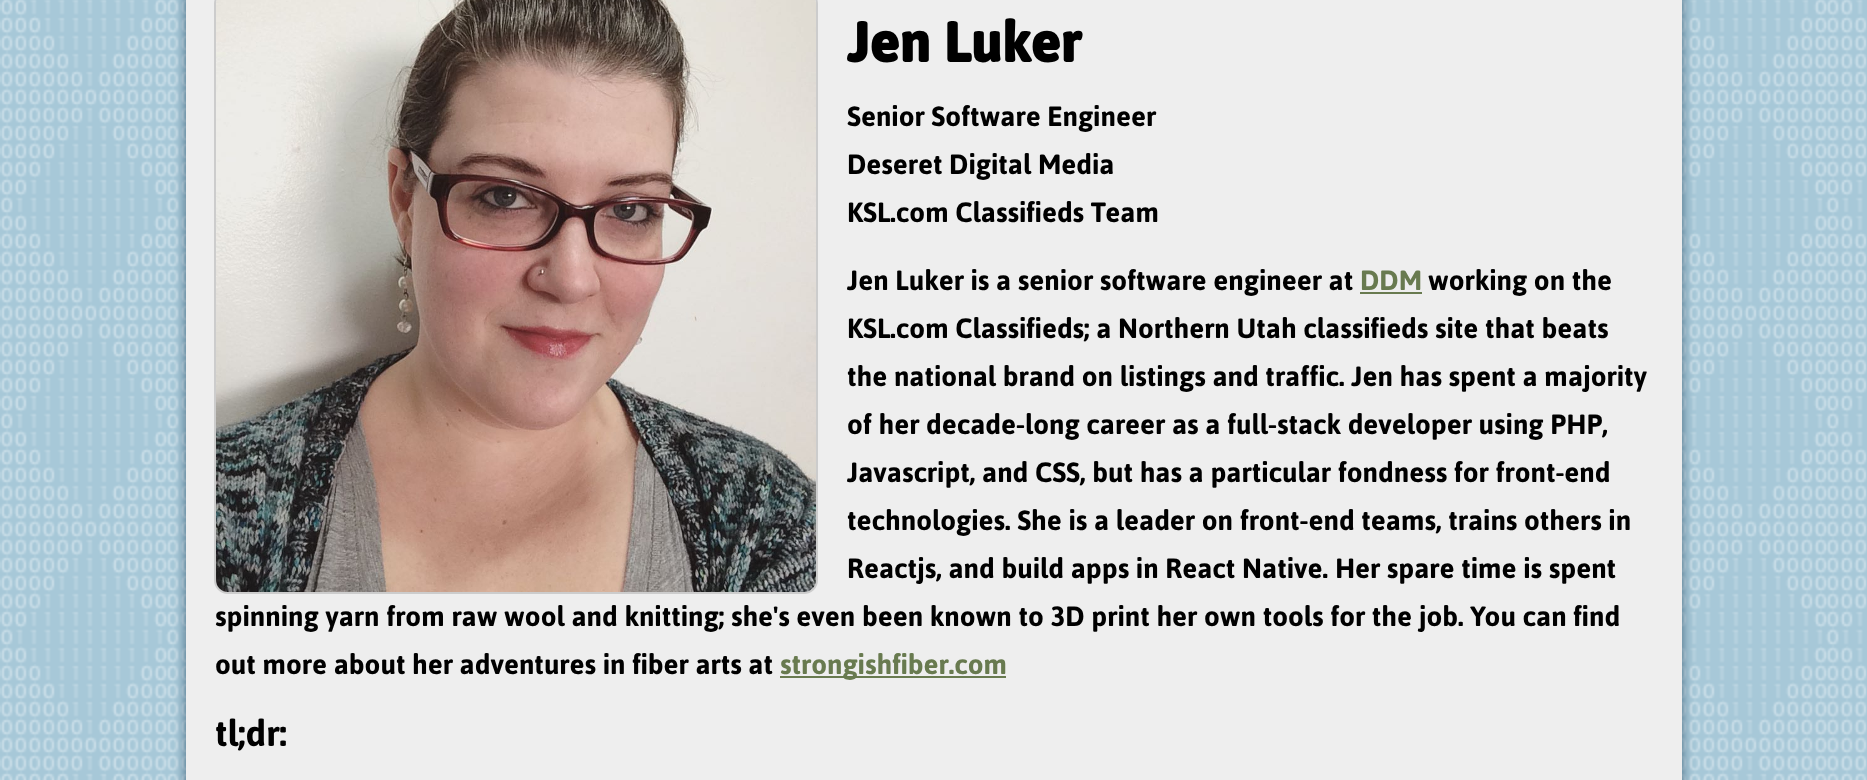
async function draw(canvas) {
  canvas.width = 1867;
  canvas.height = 780;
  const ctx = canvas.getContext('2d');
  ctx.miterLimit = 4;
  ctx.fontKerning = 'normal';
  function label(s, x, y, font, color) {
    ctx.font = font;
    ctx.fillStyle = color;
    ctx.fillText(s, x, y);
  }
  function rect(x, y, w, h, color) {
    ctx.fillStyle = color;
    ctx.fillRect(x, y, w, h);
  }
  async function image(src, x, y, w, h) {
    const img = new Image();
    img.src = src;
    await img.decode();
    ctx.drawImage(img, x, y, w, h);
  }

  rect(0, 0, 1867, 780, '#fff');
  await image('assets/img1.png', 0, 0, 1867, 780);
  ctx.fillStyle = '#40647c';
  ctx.filter = 'blur(6px)';
  ctx.beginPath();
  ctx.roundRect(186, -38, 1496, 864, 28);
  ctx.fill();
  ctx.filter = 'none';
  rect(186, 0, 1496, 780, '#eee');
  ctx.beginPath();
  ctx.roundRect(215, -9, 602, 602, 13);
  ctx.strokeStyle = '#ccc';
  ctx.lineWidth = 2;
  ctx.stroke();
  await image('assets/img2.png', 216, 0, 600, 592);
  label('Jen Luker', 847, 62, 'bold 64px Jaldi', '#000');
  label('Senior Software Engineer', 847, 126, '32px Jaldi', '#000');
  label('Deseret Digital Media', 847, 174, '32px Jaldi', '#000');
  label('KSL.com Classifieds Team', 847, 222, '32px Jaldi', '#000');
  label('Jen Luker is a senior software engineer at', 847, 290, '32px Jaldi', '#000');
  label('DDM', 1360, 290, '32px Jaldi', '#687a4f');
  rect(1360, 292, 62, 2, '#687a4f');
  label('working on the', 1428, 290, '32px Jaldi', '#000');
  label('KSL.com Classifieds; a Northern Utah classifieds site that beats', 847, 338, '32px Jaldi', '#000');
  label('the national brand on listings and traffic. Jen has spent a majority', 847, 386, '32px Jaldi', '#000');
  label('of her decade-long career as a full-stack developer using PHP,', 847, 434, '32px Jaldi', '#000');
  label('Javascript, and CSS, but has a particular fondness for front-end', 847, 482, '32px Jaldi', '#000');
  label('technologies. She is a leader on front-end teams, trains others in', 847, 530, '32px Jaldi', '#000');
  label('Reactjs, and build apps in React Native. Her spare time is spent', 847, 578, '32px Jaldi', '#000');
  label('spinning yarn from raw wool and knitting; she\'s even been known to 3D print her own tools for the job. You can find', 215, 626, '32px Jaldi', '#000');
  label('out more about her adventures in fiber arts at', 215, 674, '32px Jaldi', '#000');
  rect(780, 676, 226, 2, '#687a4f');
  label('strongishfiber.com', 780, 674, '32px Jaldi', '#687a4f');
  label('tl;dr:', 215, 746, '42px Jaldi', '#000');
}

draw(document.querySelector('canvas'));
